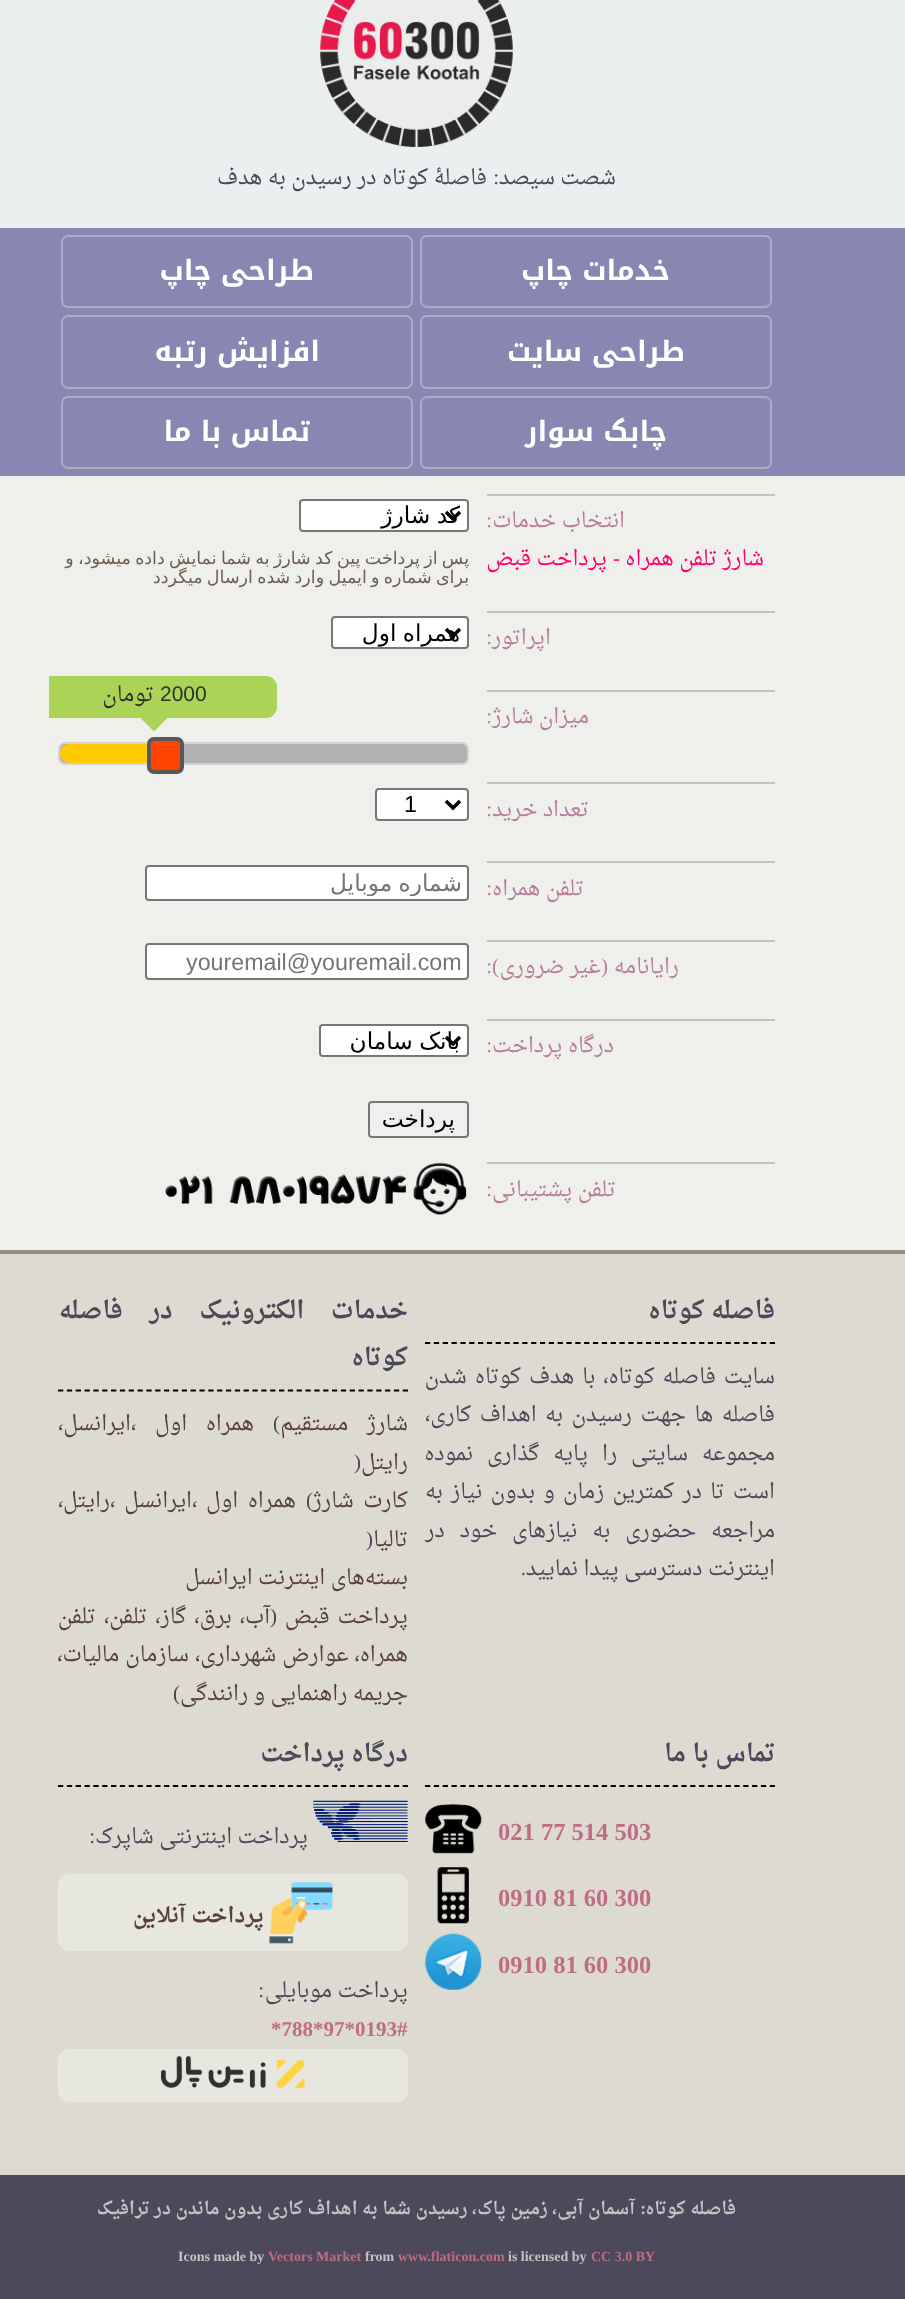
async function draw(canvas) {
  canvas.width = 905;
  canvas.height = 2299;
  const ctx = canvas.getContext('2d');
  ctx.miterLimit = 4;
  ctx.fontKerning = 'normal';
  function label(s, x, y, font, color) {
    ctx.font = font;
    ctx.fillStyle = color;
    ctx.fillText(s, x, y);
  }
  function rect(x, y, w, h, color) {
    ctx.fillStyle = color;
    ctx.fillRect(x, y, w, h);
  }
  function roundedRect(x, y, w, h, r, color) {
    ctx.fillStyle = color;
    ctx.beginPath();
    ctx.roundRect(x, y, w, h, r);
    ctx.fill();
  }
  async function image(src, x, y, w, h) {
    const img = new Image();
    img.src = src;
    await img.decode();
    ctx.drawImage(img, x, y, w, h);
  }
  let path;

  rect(0, 0, 905, 2299, '#eff0eb');
  rect(0, 0, 905, 228, '#ebeff0');
  await image('assets/img1.png', 320, 0, 193, 147);
  ctx.direction = 'rtl';
  label('شصت سیصد', 616, 184, '21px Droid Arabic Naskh', '#4c495a');
  label(':', 499, 184, '21px Liberation Serif', '#4c495a');
  label('فاصلۀ کوتاه در رسیدن به هدف', 487, 184, '21px Droid Arabic Naskh', '#4c495a');
  rect(0, 228, 905, 248, '#8887b1');
  ctx.beginPath();
  ctx.roundRect(421, 236, 350, 71, 6);
  ctx.strokeStyle = '#acabc8';
  ctx.lineWidth = 2;
  ctx.stroke();
  label('خدمات چاپ', 670, 280, 'bold 28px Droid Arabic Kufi', '#fff');
  ctx.beginPath();
  ctx.roundRect(62, 236, 350, 71, 6);
  ctx.stroke();
  label('طراحی چاپ', 314, 280, 'bold 28px Droid Arabic Kufi', '#fff');
  ctx.beginPath();
  ctx.roundRect(421, 316, 350, 72, 6);
  ctx.stroke();
  label('طراحی سایت', 685, 361, 'bold 28px Droid Arabic Kufi', '#fff');
  ctx.beginPath();
  ctx.roundRect(62, 316, 350, 72, 6);
  ctx.stroke();
  label('افزایش رتبه', 320, 361, 'bold 28px Droid Arabic Kufi', '#fff');
  ctx.beginPath();
  ctx.roundRect(421, 397, 350, 71, 6);
  ctx.stroke();
  label('چابک سوار', 667, 441, 'bold 28px Droid Arabic Kufi', '#fff');
  ctx.beginPath();
  ctx.roundRect(62, 397, 350, 71, 6);
  ctx.stroke();
  label('تماس با ما', 310, 441, 'bold 28px Droid Arabic Kufi', '#fff');
  rect(487, 494, 288, 2, '#c3c3c0');
  label('انتخاب خدمات', 625, 527, '21px Droid Arabic Naskh', '#b87d9b');
  label(':', 492, 527, '21px Liberation Serif', '#b87d9b');
  label('شارژ تلفن همراه', 764, 565, '21px Droid Arabic Naskh', '#ff006e');
  label('-', 620, 565, '21px Liberation Serif', '#ff006e');
  label('پرداخت قبض', 607, 565, '21px Droid Arabic Naskh', '#ff006e');
  ctx.fillStyle = '#fff';
  ctx.beginPath();
  ctx.roundRect(300, 500, 168, 31, 3);
  ctx.fill();
  ctx.strokeStyle = '#767676';
  ctx.stroke();
  path = new Path2D('M446 512L453 519L460 512');
  ctx.strokeStyle = '#000';
  ctx.lineWidth = 3.5;
  ctx.stroke(path);
  ctx.save();
  ctx.beginPath();
  ctx.rect(329, 501, 131, 29);
  ctx.clip();
  ctx.wordSpacing = '-1px';
  label('کد شارژ', 460, 523, '23.25px DejaVu Sans', '#000');
  ctx.restore();
  ctx.wordSpacing = '-1.25px';
  label('پس از پرداخت پین کد شارژ به شما نمایش داده میشود، و', 469, 564, '17.5px DejaVu Sans', '#6d5e51');
  label('برای شماره و ایمیل وارد شده ارسال میگردد', 469, 583, '17.5px DejaVu Sans', '#6d5e51');
  rect(487, 611, 288, 2, '#c3c3c0');
  ctx.wordSpacing = '0px';
  label('اپراتور', 551, 644, '21px Droid Arabic Naskh', '#b87d9b');
  label(':', 492, 644, '21px Liberation Serif', '#b87d9b');
  ctx.fillStyle = '#fff';
  ctx.beginPath();
  ctx.roundRect(332, 617, 136, 31, 3);
  ctx.fill();
  ctx.strokeStyle = '#767676';
  ctx.lineWidth = 2;
  ctx.stroke();
  path = new Path2D('M446 629L453 636L460 629');
  ctx.strokeStyle = '#000';
  ctx.lineWidth = 3.5;
  ctx.stroke(path);
  ctx.wordSpacing = '-1px';
  label('همراه اول', 460, 641, '23.25px DejaVu Sans', '#000');
  ctx.fillStyle = '#b2b2b2';
  ctx.beginPath();
  ctx.roundRect(59, 743, 409, 21, 6);
  ctx.fill();
  ctx.strokeStyle = '#d3d3d3';
  ctx.lineWidth = 2;
  ctx.stroke();
  roundedRect(60, 744, 101, 19, 9.5, '#ffcb00');
  ctx.fillStyle = '#ff4500';
  ctx.beginPath();
  ctx.roundRect(149, 739, 33, 33, 5);
  ctx.fill();
  ctx.strokeStyle = '#585858';
  ctx.lineWidth = 4;
  ctx.stroke();
  ctx.fillStyle = '#abd457';
  ctx.beginPath();
  ctx.roundRect(49, 676, 228, 42, [0, 11, 11, 0]);
  ctx.fill();
  ctx.wordSpacing = '0px';
  ctx.direction = 'ltr';
  label('2000', 160, 701, '21px Liberation Sans', '#30302f');
  ctx.direction = 'rtl';
  label('تومان', 154, 701, '21px Droid Arabic Naskh', '#30302f');
  ctx.fillStyle = '#abd457';
  path = new Path2D('M140 717.5H168L154 731.5Z');
  ctx.fill(path);
  rect(487, 690, 288, 2, '#c3c3c0');
  label('میزان شارژ', 589, 723, '21px Droid Arabic Naskh', '#b87d9b');
  label(':', 492, 723, '21px Liberation Serif', '#b87d9b');
  rect(487, 782, 288, 2, '#c3c3c0');
  label('تعداد خرید', 589, 816, '21px Droid Arabic Naskh', '#b87d9b');
  label(':', 492, 816, '21px Liberation Serif', '#b87d9b');
  ctx.fillStyle = '#fff';
  ctx.beginPath();
  ctx.roundRect(376, 789, 92, 31, 3);
  ctx.fill();
  ctx.strokeStyle = '#767676';
  ctx.lineWidth = 2;
  ctx.stroke();
  path = new Path2D('M446 801L453 808L460 801');
  ctx.strokeStyle = '#000';
  ctx.lineWidth = 3.5;
  ctx.stroke(path);
  ctx.direction = 'ltr';
  label('1', 404, 812, '23.25px Liberation Sans', '#000');
  rect(487, 861, 288, 2, '#c3c3c0');
  ctx.direction = 'rtl';
  label('تلفن همراه', 584, 895, '21px Droid Arabic Naskh', '#b87d9b');
  label(':', 492, 895, '21px Liberation Serif', '#b87d9b');
  ctx.fillStyle = '#fff';
  ctx.beginPath();
  ctx.roundRect(146, 866, 322, 34, 3);
  ctx.fill();
  ctx.strokeStyle = '#767676';
  ctx.lineWidth = 2;
  ctx.stroke();
  ctx.save();
  ctx.beginPath();
  ctx.rect(152, 870, 310, 26);
  ctx.clip();
  ctx.wordSpacing = '-1px';
  label('شماره موبایل', 462, 891, '23.25px DejaVu Sans', '#757575');
  ctx.restore();
  rect(487, 940, 288, 2, '#c3c3c0');
  label('رایانامه', 679, 973, '21px Droid Arabic Naskh', '#b87d9b');
  label('(', 608, 973, '21px Liberation Serif', '#b87d9b');
  label('غیر ضروری', 601, 973, '21px Droid Arabic Naskh', '#b87d9b');
  label('):', 499, 973, '21px Liberation Serif', '#b87d9b');
  ctx.fillStyle = '#fff';
  ctx.beginPath();
  ctx.roundRect(146, 944, 322, 35, 3);
  ctx.fill();
  ctx.stroke();
  ctx.direction = 'ltr';
  label('youremail@youremail.com', 186, 970, '23.25px Liberation Sans', '#757575');
  rect(487, 1019, 288, 2, '#c3c3c0');
  ctx.direction = 'rtl';
  label('درگاه پرداخت', 614, 1052, '21px Droid Arabic Naskh', '#b87d9b');
  label(':', 492, 1052, '21px Liberation Serif', '#b87d9b');
  ctx.fillStyle = '#fff';
  ctx.beginPath();
  ctx.roundRect(320, 1025, 148, 31, 3);
  ctx.fill();
  ctx.stroke();
  path = new Path2D('M446 1037L453 1044L460 1037');
  ctx.strokeStyle = '#000';
  ctx.lineWidth = 3.5;
  ctx.stroke(path);
  ctx.wordSpacing = '-1px';
  label('بانک سامان', 460, 1049, '23.25px DejaVu Sans', '#000');
  ctx.fillStyle = '#efefef';
  ctx.beginPath();
  ctx.roundRect(369, 1102, 99, 35, 3);
  ctx.fill();
  ctx.strokeStyle = '#767676';
  ctx.lineWidth = 2;
  ctx.stroke();
  ctx.wordSpacing = '0px';
  label('پرداخت', 455, 1127, '23.25px DejaVu Sans', '#000');
  rect(487, 1162, 288, 2, '#c3c3c0');
  label('تلفن پشتیبانی', 616, 1196, '21px Droid Arabic Naskh', '#b87d9b');
  label(':', 492, 1196, '21px Liberation Serif', '#b87d9b');
  await image('assets/img2.png', 165, 1162, 302, 53);
  rect(0, 1254, 905, 921, '#dddbd1');
  rect(0, 1250, 905, 4, '#998c7c');
  path = new Path2D('M425 1343H775');
  ctx.strokeStyle = '#000';
  ctx.lineWidth = 1.8;
  ctx.setLineDash([5.25, 3.59]);
  ctx.stroke(path);
  label('فاصله کوتاه', 775, 1318, 'bold 24.5px Droid Arabic Naskh', '#4c495a');
  ctx.wordSpacing = '2.5px';
  label('سایت فاصله کوتاه، با هدف کوتاه شدن', 775, 1383, '21px Droid Arabic Naskh', '#4c495a');
  ctx.wordSpacing = '3px';
  label('فاصله ها جهت رسیدن به اهداف کاری،', 775, 1421, '21px Droid Arabic Naskh', '#4c495a');
  ctx.wordSpacing = '8.5px';
  label('مجموعه سایتی را پایه گذاری نموده', 775, 1460, '21px Droid Arabic Naskh', '#4c495a');
  ctx.wordSpacing = '2.75px';
  label('است تا در کمترین زمان و بدون نیاز به', 775, 1498, '21px Droid Arabic Naskh', '#4c495a');
  ctx.wordSpacing = '9.5px';
  label('مراجعه حضوری به نیازهای خود در', 775, 1537, '21px Droid Arabic Naskh', '#4c495a');
  ctx.wordSpacing = '0px';
  label('اینترنت دسترسی پیدا نمایید', 775, 1575, '21px Droid Arabic Naskh', '#4c495a');
  label('.', 526, 1575, '21px Liberation Serif', '#4c495a');
  path = new Path2D('M58 1390.5H408');
  ctx.stroke(path);
  ctx.wordSpacing = '20px';
  label('خدمات الکترونیک در فاصله', 408, 1318, 'bold 24.5px Droid Arabic Naskh', '#4c495a');
  ctx.wordSpacing = '0px';
  label('کوتاه', 408, 1365, 'bold 24.5px Droid Arabic Naskh', '#4c495a');
  ctx.wordSpacing = '13px';
  label('شارژ مستقیم', 408, 1430, '21px Droid Arabic Naskh', '#593f3d');
  ctx.wordSpacing = '0px';
  ctx.direction = 'ltr';
  label('(', 273, 1430, '21px Liberation Serif', '#4c495a');
  ctx.wordSpacing = '13px';
  ctx.direction = 'rtl';
  label('همراه اول', 254, 1430, '21px Droid Arabic Naskh', '#593f3d');
  ctx.wordSpacing = '0px';
  ctx.direction = 'ltr';
  label('،', 131, 1430, '21px Droid Arabic Naskh', '#4c495a');
  ctx.direction = 'rtl';
  label('ایرانسل', 131, 1430, '21px Droid Arabic Naskh', '#593f3d');
  ctx.direction = 'ltr';
  label('،', 58, 1430, '21px Droid Arabic Naskh', '#4c495a');
  ctx.direction = 'rtl';
  label('رایتل', 408, 1469, '21px Droid Arabic Naskh', '#593f3d');
  ctx.direction = 'ltr';
  label(')', 354, 1469, '21px Liberation Serif', '#4c495a');
  ctx.wordSpacing = '4px';
  ctx.direction = 'rtl';
  label('کارت شارژ', 408, 1507, '21px Droid Arabic Naskh', '#593f3d');
  ctx.wordSpacing = '0px';
  ctx.direction = 'ltr';
  label('(', 306, 1507, '21px Liberation Serif', '#4c495a');
  ctx.wordSpacing = '4px';
  ctx.direction = 'rtl';
  label('همراه اول', 296, 1507, '21px Droid Arabic Naskh', '#593f3d');
  ctx.wordSpacing = '0px';
  ctx.direction = 'ltr';
  label('،', 192, 1507, '21px Droid Arabic Naskh', '#4c495a');
  ctx.direction = 'rtl';
  label('ایرانسل', 192, 1507, '21px Droid Arabic Naskh', '#593f3d');
  ctx.direction = 'ltr';
  label('،', 110, 1507, '21px Droid Arabic Naskh', '#4c495a');
  ctx.direction = 'rtl';
  label('رایتل', 110, 1507, '21px Droid Arabic Naskh', '#593f3d');
  ctx.direction = 'ltr';
  label('،', 58, 1507, '21px Droid Arabic Naskh', '#4c495a');
  ctx.direction = 'rtl';
  label('تالیا', 408, 1546, '21px Droid Arabic Naskh', '#593f3d');
  ctx.direction = 'ltr';
  label(')', 366, 1546, '21px Liberation Serif', '#4c495a');
  ctx.direction = 'rtl';
  label('بسته‌های اینترنت ایرانسل', 408, 1584, '21px Droid Arabic Naskh', '#593f3d');
  ctx.wordSpacing = '2.5px';
  label('پرداخت قبض', 408, 1623, '21px Droid Arabic Naskh', '#593f3d');
  ctx.wordSpacing = '0px';
  label('(', 277, 1623, '21px Liberation Serif', '#593f3d');
  ctx.wordSpacing = '2.5px';
  label('آب، برق، گاز، تلفن، تلفن', 270, 1623, '21px Droid Arabic Naskh', '#593f3d');
  ctx.wordSpacing = '0.5px';
  label('همراه، عوارض شهرداری، سازمان مالیات،', 408, 1661, '21px Droid Arabic Naskh', '#593f3d');
  ctx.wordSpacing = '0px';
  label('جریمه راهنمایی و رانندگی', 408, 1700, '21px Droid Arabic Naskh', '#593f3d');
  label(')', 180, 1700, '21px Liberation Serif', '#593f3d');
  path = new Path2D('M425 1786H775');
  ctx.stroke(path);
  label('تماس با ما', 775, 1761, 'bold 24.5px Droid Arabic Naskh', '#4c495a');
  ctx.direction = 'ltr';
  label('021 77 514 503', 498, 1840, 'bold 24.5px Liberation Serif', '#c06c84');
  await image('assets/img3.png', 425, 1804, 57, 50);
  label('0910 81 60 300', 498, 1906, 'bold 24.5px Liberation Serif', '#c06c84');
  await image('assets/img4.png', 437, 1867, 32, 57);
  label('0910 81 60 300', 498, 1973, 'bold 24.5px Liberation Serif', '#c06c84');
  await image('assets/img5.png', 425, 1933, 57, 57);
  path = new Path2D('M58 1786H408');
  ctx.stroke(path);
  ctx.direction = 'rtl';
  label('درگاه پرداخت', 408, 1761, 'bold 24.5px Droid Arabic Naskh', '#4c495a');
  await image('assets/img6.png', 313, 1800, 95, 43);
  label('پرداخت اینترنتی شاپرک', 308, 1843, '21px Droid Arabic Naskh', '#4c495a');
  label(':', 95, 1843, '21px Liberation Serif', '#4c495a');
  roundedRect(58, 1874, 350, 77, 11, '#e7e6df');
  await image('assets/img7.png', 269, 1882, 64, 62);
  label('پرداخت آنلاین', 264, 1922, 'bold 21px Droid Arabic Naskh', '#593f3d');
  label('پرداخت موبایلی', 408, 1997, '21px Droid Arabic Naskh', '#4c495a');
  label(':', 264, 1997, '21px Liberation Serif', '#4c495a');
  ctx.direction = 'ltr';
  label('*788*97*0193#', 271, 2036, 'bold 21px Liberation Serif', '#c06c84');
  roundedRect(58, 2049, 350, 53, 11, '#e7e6df');
  await image('assets/img8.png', 161, 2056, 144, 32);
  rect(0, 2175, 905, 124, '#4c495a');
  ctx.direction = 'rtl';
  label('فاصله کوتاه', 736, 2214, 'bold 17.5px Droid Arabic Naskh', '#c4c4c4');
  label(':', 646, 2214, 'bold 17.5px Liberation Serif', '#c4c4c4');
  label('آسمان آبی، زمین پاک، رسیدن شما به اهداف کاری بدون ماندن در ترافیک', 635, 2214, 'bold 17.5px Droid Arabic Naskh', '#c4c4c4');
  ctx.direction = 'ltr';
  label('CC 3.0 BY', 591, 2261, 'bold 14px Liberation Serif', '#c06c84');
  label('is licensed by', 508, 2261, 'bold 14px Liberation Serif', '#c4c4c4');
  label('www.flaticon.com', 398, 2261, 'bold 14px Liberation Serif', '#c06c84');
  label('from', 365, 2261, 'bold 14px Liberation Serif', '#c4c4c4');
  label('Vectors Market', 268, 2261, 'bold 14px Liberation Serif', '#c06c84');
  label('Icons made by', 178, 2261, 'bold 14px Liberation Serif', '#c4c4c4');
}

draw(document.querySelector('canvas'));
